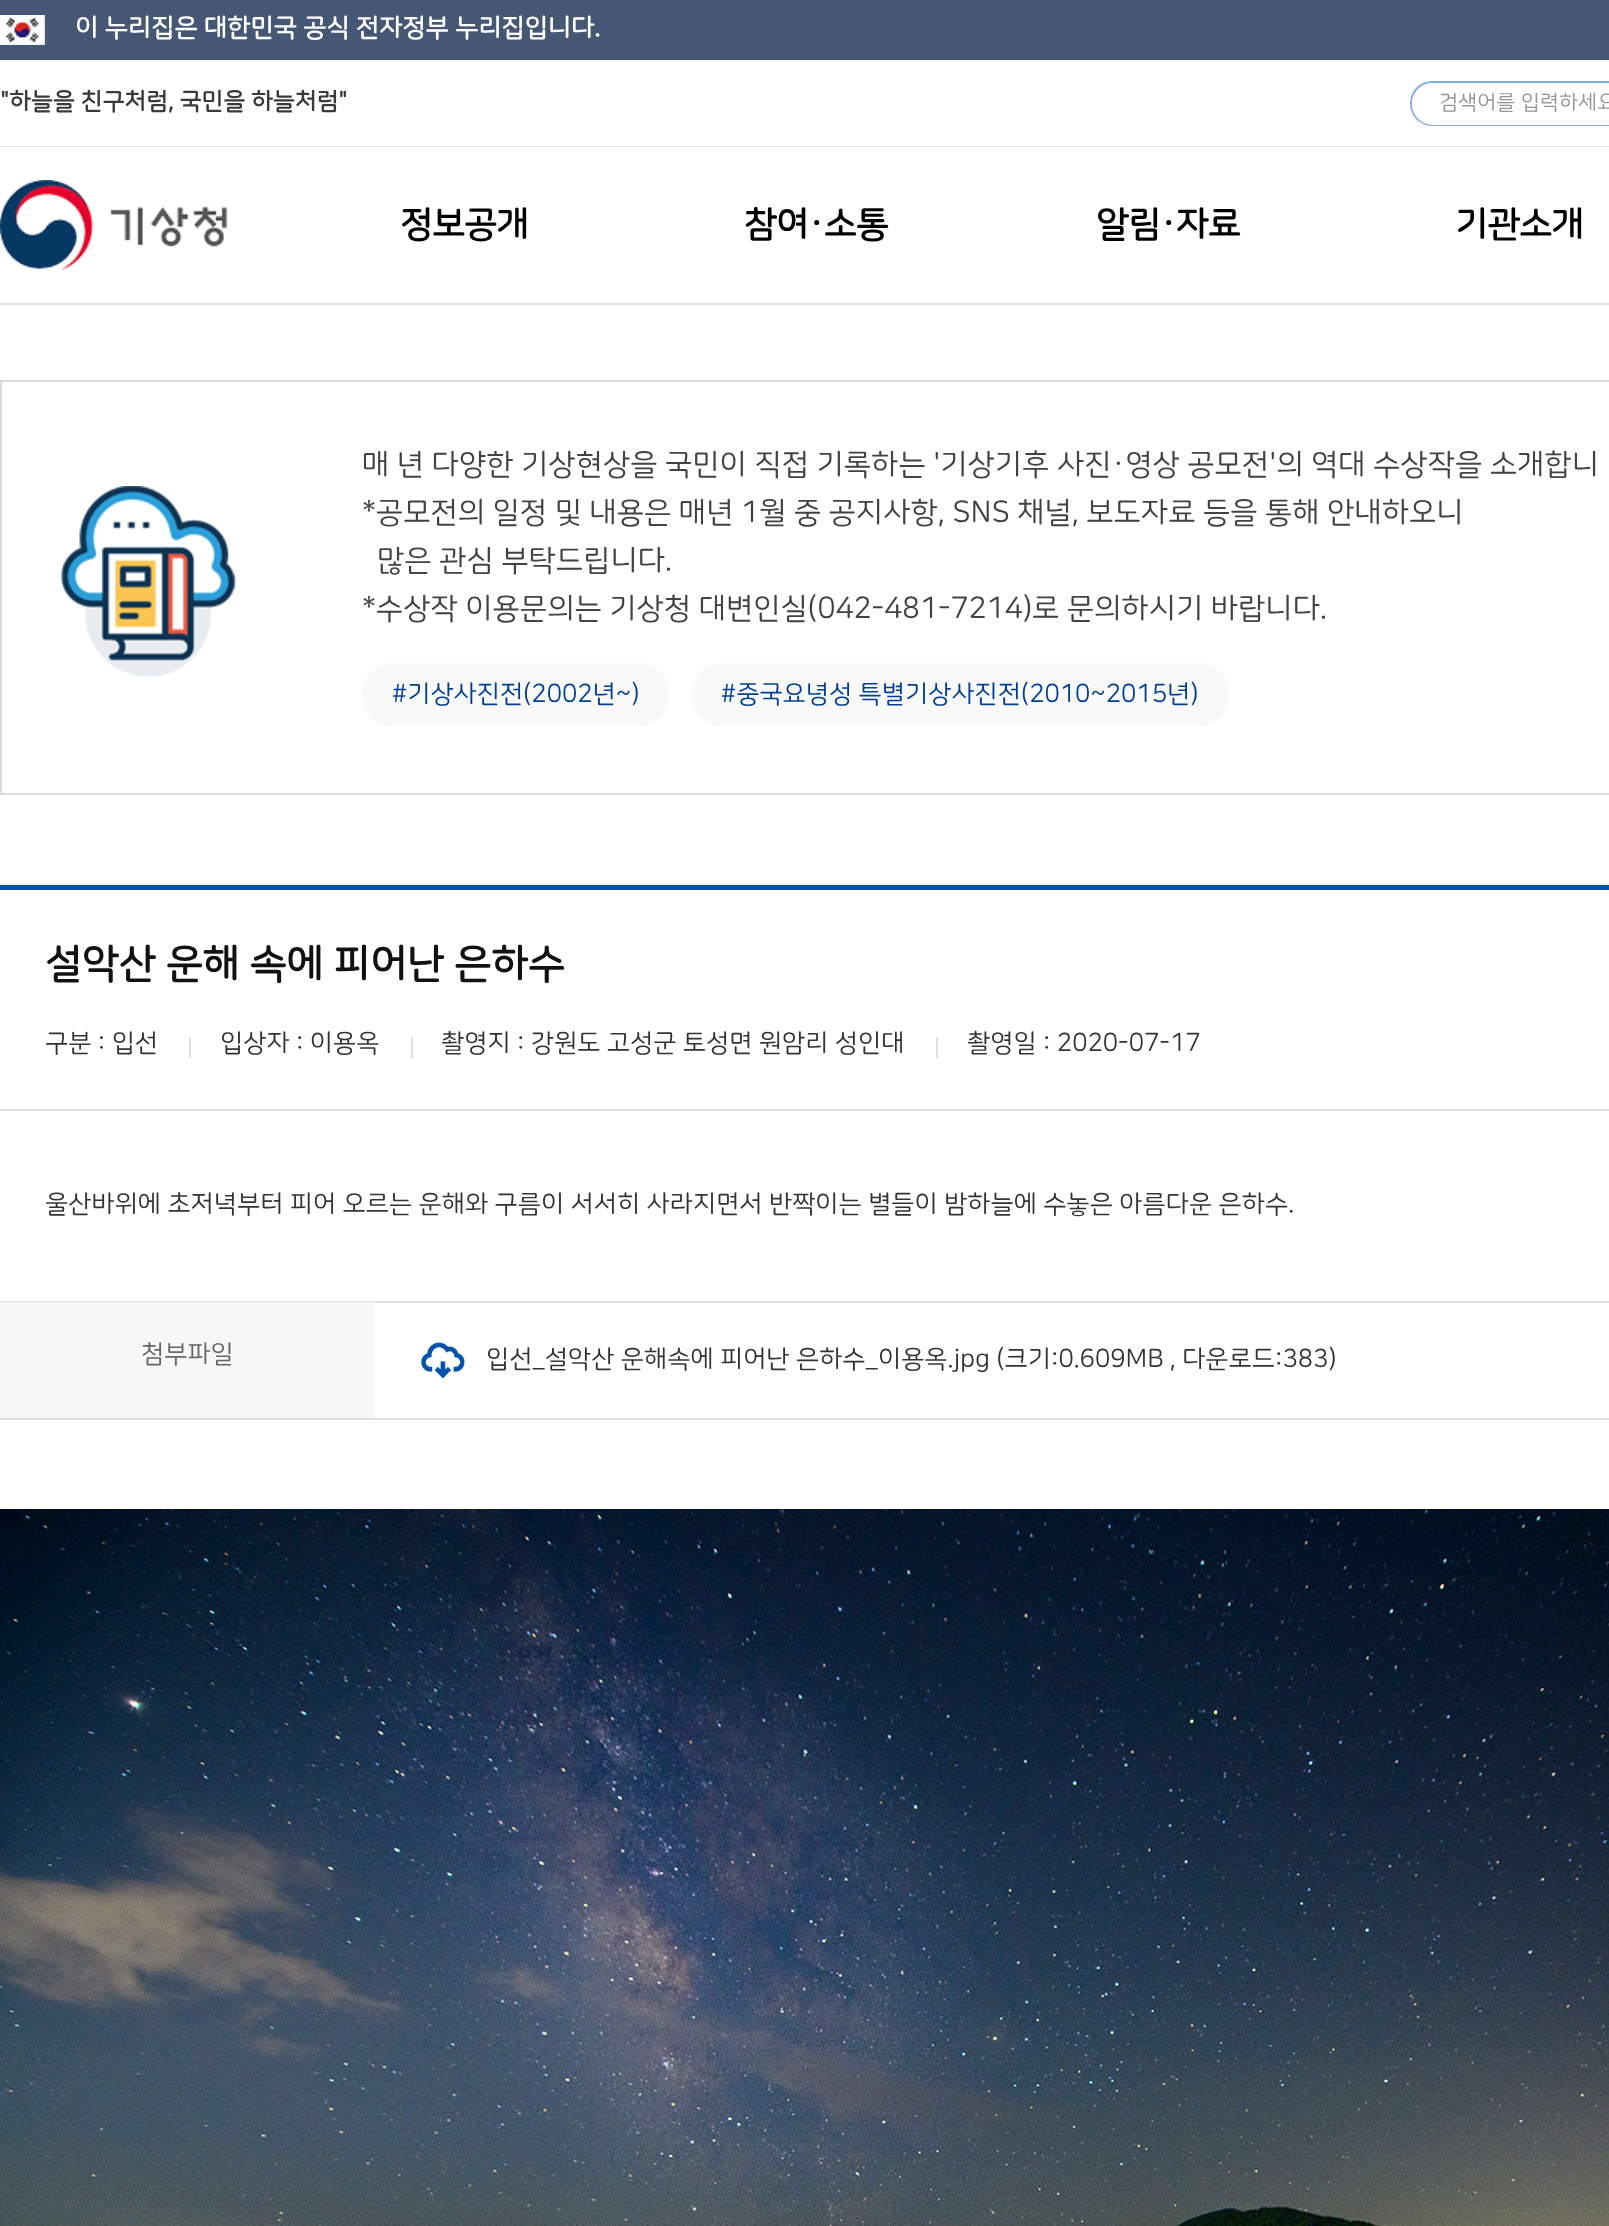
async function draw(canvas) {
  canvas.width = 1609;
  canvas.height = 2226;
  const ctx = canvas.getContext('2d');
  ctx.miterLimit = 4;
  ctx.fontKerning = 'normal';
  function label(s, x, y, font, color) {
    ctx.font = font;
    ctx.fillStyle = color;
    ctx.fillText(s, x, y);
  }
  function rect(x, y, w, h, color) {
    ctx.fillStyle = color;
    ctx.fillRect(x, y, w, h);
  }
  function roundedRect(x, y, w, h, r, color) {
    ctx.fillStyle = color;
    ctx.beginPath();
    ctx.roundRect(x, y, w, h, r);
    ctx.fill();
  }
  async function image(src, x, y, w, h) {
    const img = new Image();
    img.src = src;
    await img.decode();
    ctx.drawImage(img, x, y, w, h);
  }
  let path;

  rect(0, 0, 1609, 2226, '#fff');
  rect(0, 0, 1609, 60, '#465775');
  await image('assets/img1.png', 0, 15, 45, 30);
  label('이 누리집은 대한민국 공식 전자정부 누리집입니다.', 75, 36, 'bold 25.5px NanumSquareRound', '#fff');
  label('"하늘을 친구처럼, 국민을 하늘처럼"', 0, 109, 'bold 24px NanumSquareRound', '#3a3a3a');
  ctx.beginPath();
  ctx.roundRect(1411, 82, 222, 43, 21.5);
  ctx.strokeStyle = '#83acea';
  ctx.lineWidth = 2;
  ctx.stroke();
  ctx.fillStyle = '#fff';
  path = new Path2D('M1433 83H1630V125H1433C1421.5 125 1412 115.5 1412 104C1412 92.5 1421.5 83 1433 83Z');
  ctx.fill(path);
  label('검색어를 입력하세요', 1439, 109, '21px NanumSquareRound', '#969696');
  rect(0, 146, 1609, 1, '#e2e4e6');
  rect(0, 303, 1609, 2, '#e2e4e6');
  await image('assets/img2.png', 0, 180, 228, 90);
  ctx.letterSpacing = '-0.75px';
  label('정보공개', 400, 236, 'bold 36px NanumSquareRound', '#000');
  label('참여·소통', 744, 236, 'bold 36px NanumSquareRound', '#000');
  label('알림·자료', 1096, 236, 'bold 36px NanumSquareRound', '#000');
  label('기관소개', 1455, 236, 'bold 36px NanumSquareRound', '#000');
  ctx.strokeStyle = '#dcdcdc';
  ctx.strokeRect(1, 381, 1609, 413);
  await image('assets/img3.png', 61, 486, 175, 191);
  ctx.letterSpacing = '0px';
  label('매 년 다양한 기상현상을 국민이 직접 기록하는 \'기상기후 사진·영상 공모전\'의 역대 수상작을 소개합니', 362, 474, '30px NanumSquareRound', '#424242');
  label('*공모전의 일정 및 내용은 매년 1월 중 공지사항, SNS 채널, 보도자료 등을 통해 안내하오니', 362, 522, '30px NanumSquareRound', '#424242');
  label('많은 관심 부탁드립니다.', 377, 570, '30px NanumSquareRound', '#424242');
  label('*수상작 이용문의는 기상청 대변인실(042-481-7214)로 문의하시기 바랍니다.', 362, 618, '30px NanumSquareRound', '#424242');
  roundedRect(362, 663, 307, 63, 30, '#f9f9f9');
  label('#기상사진전(2002년~)', 392, 702, '25.5px NanumSquareRound', '#004090');
  roundedRect(692, 663, 537, 63, 30, '#f9f9f9');
  label('#중국요녕성 특별기상사진전(2010~2015년)', 721, 702, '25.5px NanumSquareRound', '#004090');
  rect(0, 885, 1609, 5, '#0153a9');
  label('설악산 운해 속에 피어난 은하수', 45, 977, 'bold 40.5px NanumSquareRound', '#111');
  label('구분 : 입선', 45, 1051, '25.5px NanumSquareRound', '#333');
  rect(189, 1037, 2, 21, '#dfdfdf');
  label('입상자 : 이용옥', 220, 1051, '25.5px NanumSquareRound', '#333');
  rect(411, 1037, 2, 21, '#dfdfdf');
  label('촬영지 : 강원도 고성군 토성면 원암리 성인대', 441, 1051, '25.5px NanumSquareRound', '#333');
  rect(936, 1037, 2, 21, '#dfdfdf');
  label('촬영일 : 2020-07-17', 967, 1051, '25.5px NanumSquareRound', '#333');
  rect(0, 1109, 1609, 2, '#e0e0e0');
  rect(0, 1301, 1609, 2, '#e0e0e0');
  label('울산바위에 초저녁부터 피어 오르는 운해와 구름이 서서히 사라지면서 반짝이는 별들이 밤하늘에 수놓은 아름다운 은하수.', 45, 1212, '25.5px NanumSquareRound', '#333');
  rect(0, 1418, 1609, 2, '#e0e0e0');
  rect(0, 1302, 375, 116, '#f7f7f7');
  label('첨부파일', 141, 1362, '25.5px NanumSquareRound', '#686767');
  await image('assets/img4.png', 420, 1342, 45, 37);
  label('입선_설악산 운해속에 피어난 은하수_이용옥.jpg (크기:0.609MB , 다운로드:383)', 486, 1367, '25.5px NanumSquareRound', '#333');
  await image('assets/img5.png', 0, 1509, 1609, 717);
}

draw(document.querySelector('canvas'));
